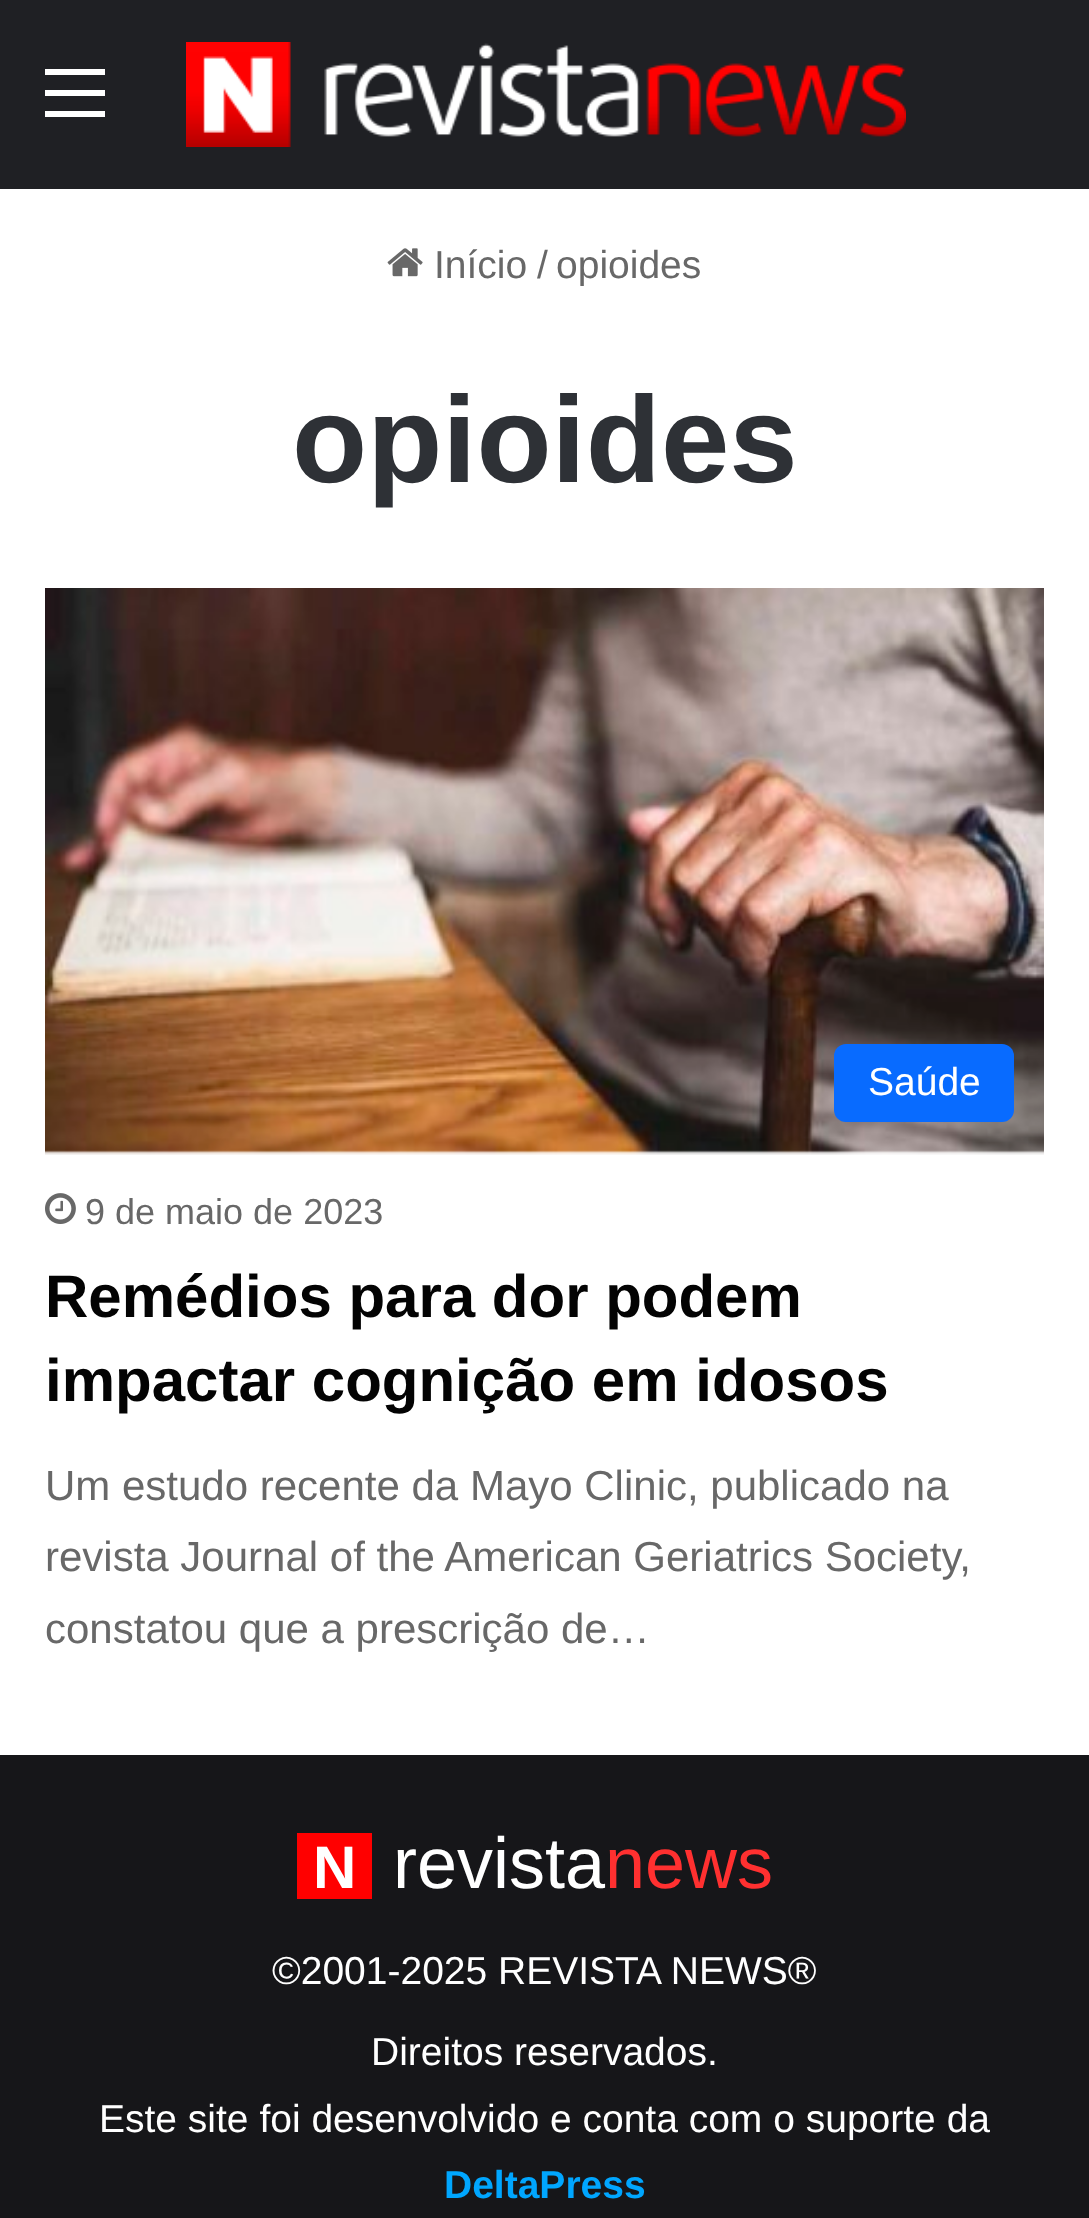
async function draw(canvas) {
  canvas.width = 1089;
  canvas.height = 2218;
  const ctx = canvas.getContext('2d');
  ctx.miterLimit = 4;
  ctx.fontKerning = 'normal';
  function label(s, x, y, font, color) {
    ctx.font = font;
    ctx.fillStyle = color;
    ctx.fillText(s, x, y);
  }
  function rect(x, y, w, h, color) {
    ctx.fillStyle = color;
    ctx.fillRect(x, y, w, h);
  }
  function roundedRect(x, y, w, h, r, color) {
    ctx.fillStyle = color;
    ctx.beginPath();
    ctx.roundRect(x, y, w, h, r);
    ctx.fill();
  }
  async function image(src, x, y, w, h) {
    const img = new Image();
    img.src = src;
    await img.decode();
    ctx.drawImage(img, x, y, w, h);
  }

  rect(0, 0, 1089, 2218, '#fff');
  rect(0, 0, 1089, 189, '#1f2024');
  rect(45, 90, 60, 6, '#fff');
  rect(45, 69, 60, 6, '#fff');
  rect(45, 111, 60, 6, '#fff');
  await image('assets/img1.png', 186, 42, 720, 105);
  await image('assets/img2.png', 387, 248, 36, 29);
  label('Início', 434, 278, '39px Liberation Sans', '#686868');
  label('/', 537, 278, '39px Liberation Sans', '#686868');
  label('opioides', 556, 278, '39px Liberation Sans', '#686868');
  label('opioides', 292, 482, 'bold 123px Liberation Sans', '#2e3136');
  await image('assets/img3.png', 45, 588, 999, 567);
  roundedRect(834, 1044, 180, 78, 12, '#086bff');
  label('Saúde', 868, 1095, '39px Liberation Sans', '#fff');
  await image('assets/img4.png', 45, 1193, 31, 31);
  label('9 de maio de 2023', 85, 1224, '36px Liberation Sans', '#686868');
  label('Remédios para dor podem', 45, 1317, 'bold 60px Liberation Sans', '#030303');
  label('impactar cognição em idosos', 45, 1401, 'bold 60px Liberation Sans', '#030303');
  label('Um estudo recente da Mayo Clinic, publicado na', 45, 1500, '42px Liberation Sans', '#686868');
  label('revista Journal of the American Geriatrics Society,', 45, 1571, '42px Liberation Sans', '#686868');
  label('constatou que a prescrição de…', 45, 1643, '42px Liberation Sans', '#686868');
  rect(0, 1755, 1089, 463, '#161619');
  rect(297, 1833, 75, 66, '#f00');
  label('N', 313, 1888, 'bold 60px Liberation Sans', '#fff');
  label('revista', 393, 1888, '72px Liberation Sans', '#fff');
  label('news', 605, 1888, '72px Liberation Sans', '#ff3030');
  label('©2001-2025 REVISTA NEWS®', 272, 1984, '39px Liberation Sans', '#fff');
  label('Direitos reservados.', 371, 2065, '39px Liberation Sans', '#fff');
  label('Este site foi desenvolvido e conta com o suporte da', 99, 2132, '39px Liberation Sans', '#fff');
  label('DeltaPress', 444, 2198, 'bold 39px Liberation Sans', '#00a6ff');
}

draw(document.querySelector('canvas'));
